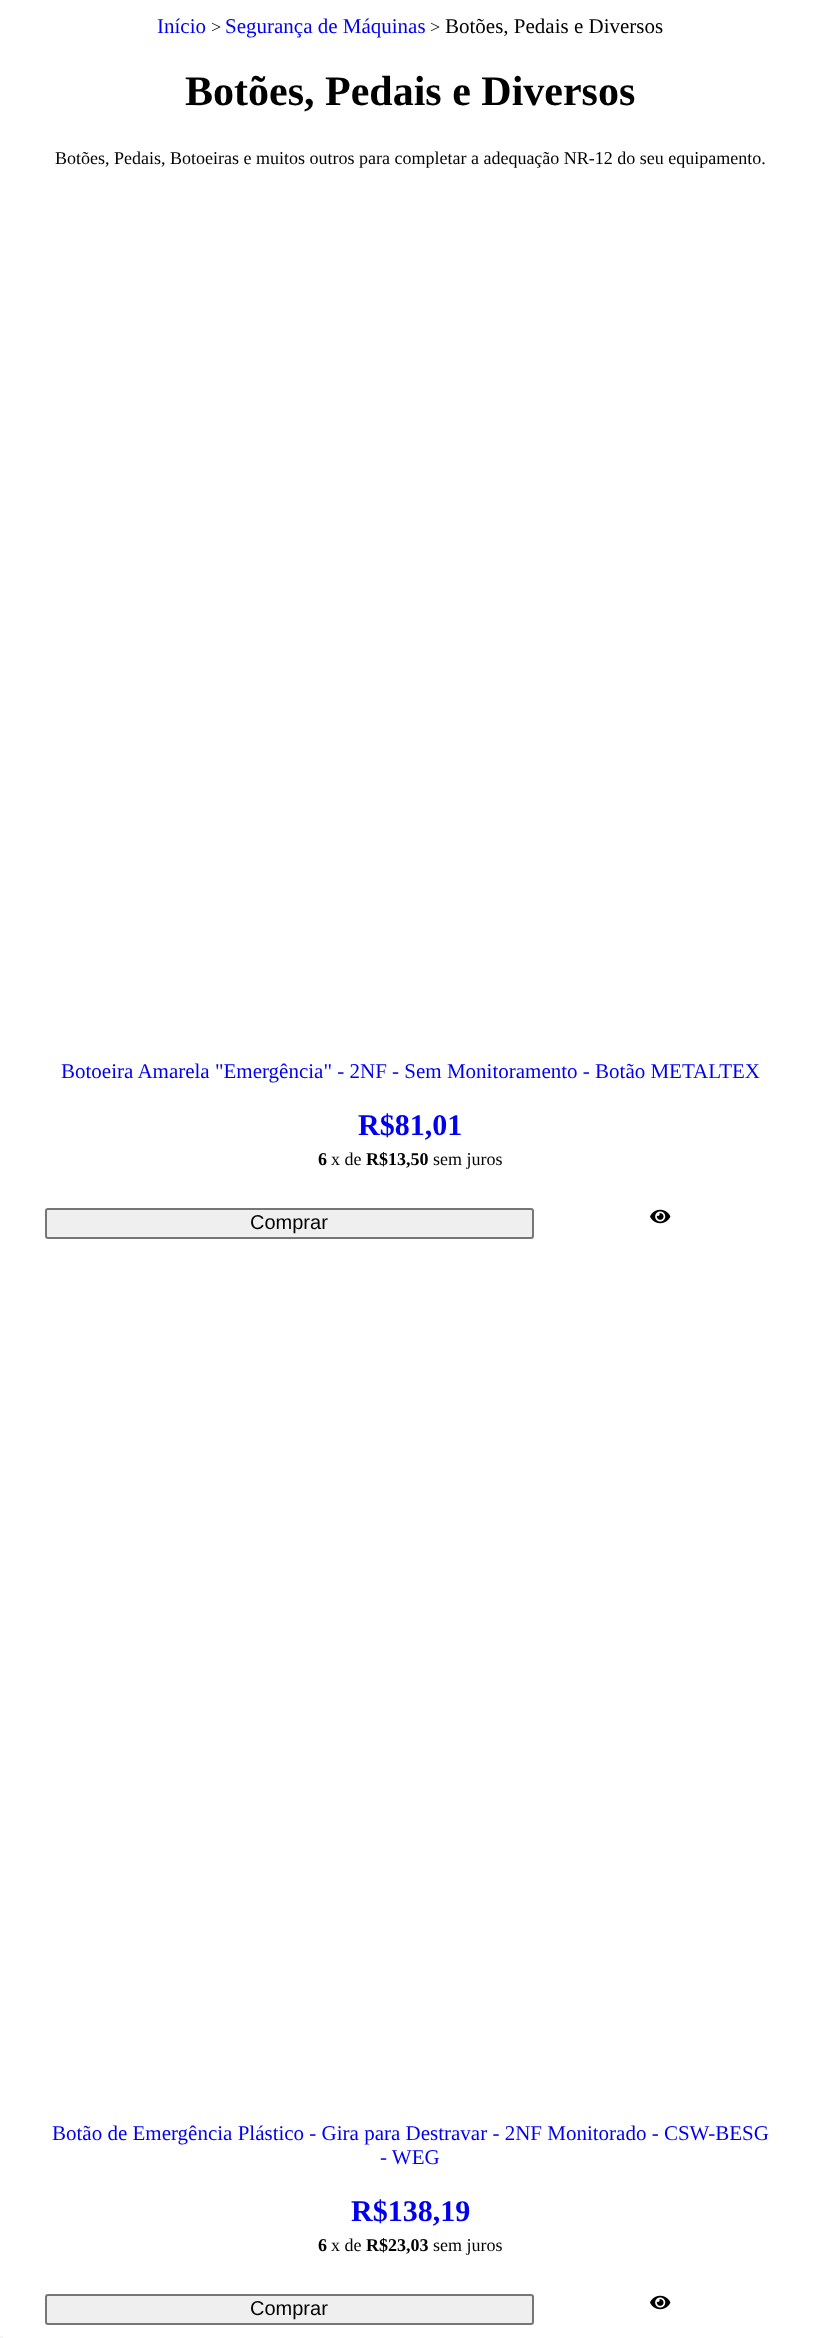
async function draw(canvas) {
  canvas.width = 820;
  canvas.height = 2338;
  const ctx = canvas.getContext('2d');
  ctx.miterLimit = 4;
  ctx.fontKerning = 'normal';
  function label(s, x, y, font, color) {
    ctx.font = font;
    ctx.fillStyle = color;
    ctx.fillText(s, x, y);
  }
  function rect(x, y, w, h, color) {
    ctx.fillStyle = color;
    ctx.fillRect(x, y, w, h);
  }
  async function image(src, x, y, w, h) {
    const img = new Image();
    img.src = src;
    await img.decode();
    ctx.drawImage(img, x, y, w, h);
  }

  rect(0, 0, 820, 2338, '#fff');
  label('Início', 157, 33, '21px Liberation Serif', '#00e');
  label('>', 211, 33, '18px Liberation Serif', '#000');
  label('Segurança de Máquinas', 225, 33, '21px Liberation Serif', '#00e');
  label('>', 430, 33, '18px Liberation Serif', '#000');
  label('Botões, Pedais e Diversos', 445, 33, '21px Liberation Serif', '#000');
  label('Botões, Pedais e Diversos', 185, 105, 'bold 42px Liberation Serif', '#000');
  label('Botões, Pedais, Botoeiras e muitos outros para completar a adequação NR-12 do seu equipamento.', 55, 164, '18px Liberation Serif', '#000');
  label('Botoeira Amarela "Emergência" - 2NF - Sem Monitoramento - Botão METALTEX', 61, 1078, '21px Liberation Serif', '#00e');
  label('R$81,01', 358, 1135, 'bold 30px Liberation Serif', '#00e');
  label('6', 318, 1165, 'bold 18px Liberation Serif', '#000');
  label('x de', 331, 1165, '18px Liberation Serif', '#000');
  label('R$13,50', 366, 1165, 'bold 18px Liberation Serif', '#000');
  label('sem juros', 433, 1165, '18px Liberation Serif', '#000');
  ctx.fillStyle = '#efefef';
  ctx.beginPath();
  ctx.roundRect(46, 1209, 487, 29, 2);
  ctx.fill();
  ctx.strokeStyle = '#767676';
  ctx.lineWidth = 2;
  ctx.stroke();
  label('Comprar', 250, 1229, '20px Liberation Sans', '#000');
  await image('assets/img1.png', 650, 1209, 21, 15);
  label('Botão de Emergência Plástico - Gira para Destravar - 2NF Monitorado - CSW-BESG', 52, 2140, '21px Liberation Serif', '#00e');
  label('- WEG', 380, 2164, '21px Liberation Serif', '#00e');
  label('R$138,19', 351, 2221, 'bold 30px Liberation Serif', '#00e');
  label('6', 318, 2251, 'bold 18px Liberation Serif', '#000');
  label('x de', 331, 2251, '18px Liberation Serif', '#000');
  label('R$23,03', 366, 2251, 'bold 18px Liberation Serif', '#000');
  label('sem juros', 433, 2251, '18px Liberation Serif', '#000');
  ctx.fillStyle = '#efefef';
  ctx.beginPath();
  ctx.roundRect(46, 2295, 487, 29, 2);
  ctx.fill();
  ctx.stroke();
  label('Comprar', 250, 2315, '20px Liberation Sans', '#000');
  await image('assets/img1.png', 650, 2295, 21, 15);
  rect(0, 2336, 3, 2, '#f5f5f5');
}

draw(document.querySelector('canvas'));
